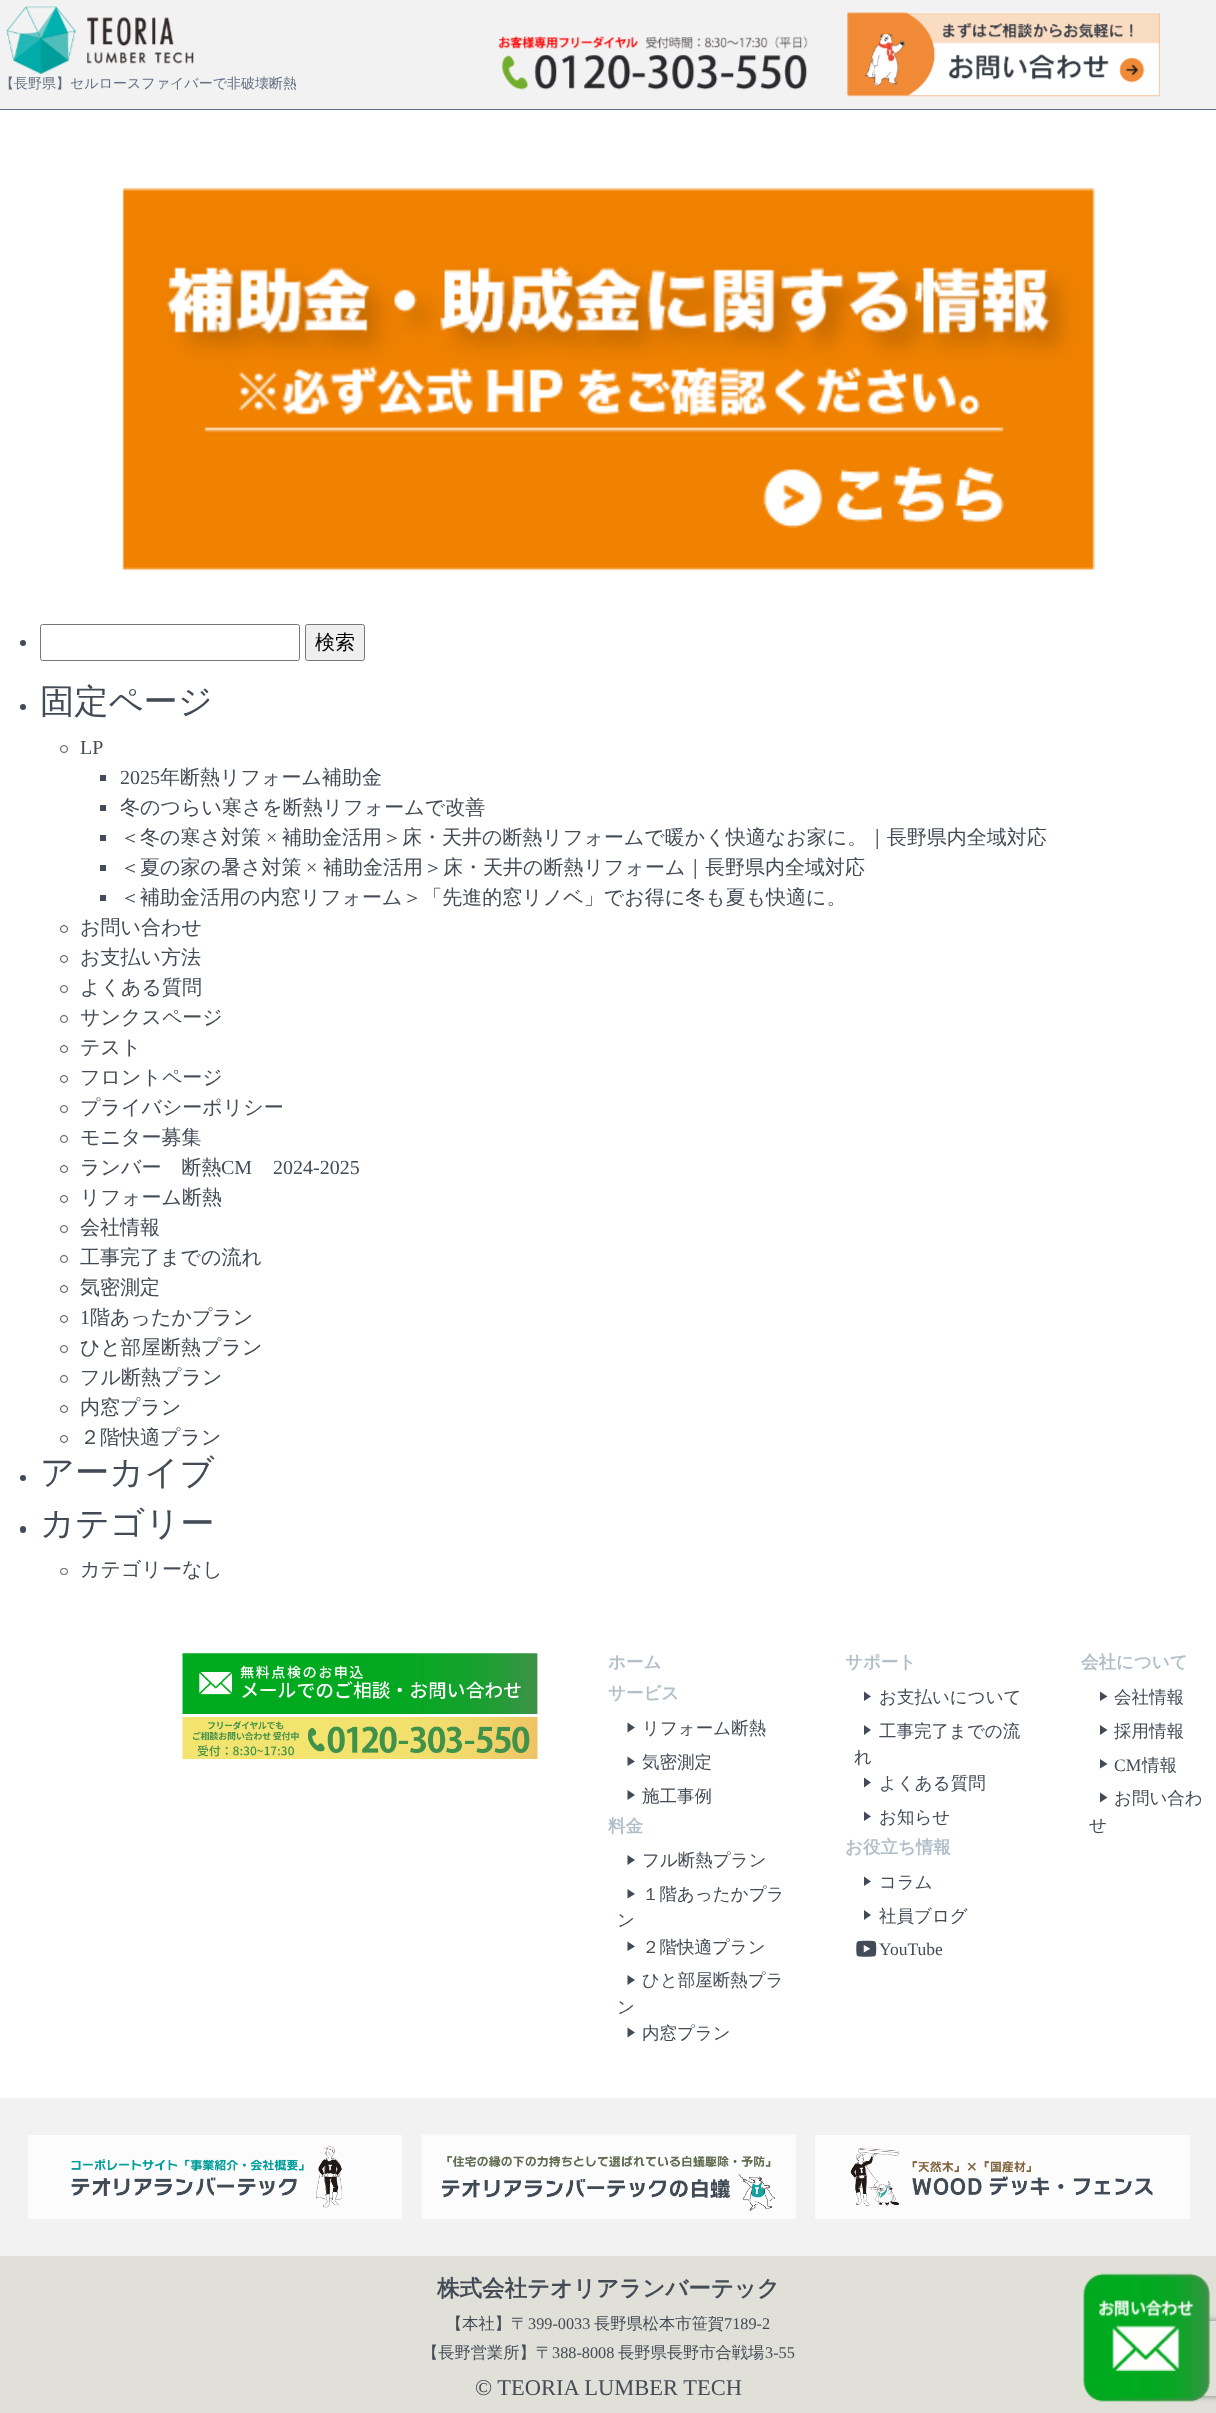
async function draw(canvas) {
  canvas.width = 1216;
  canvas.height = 2413;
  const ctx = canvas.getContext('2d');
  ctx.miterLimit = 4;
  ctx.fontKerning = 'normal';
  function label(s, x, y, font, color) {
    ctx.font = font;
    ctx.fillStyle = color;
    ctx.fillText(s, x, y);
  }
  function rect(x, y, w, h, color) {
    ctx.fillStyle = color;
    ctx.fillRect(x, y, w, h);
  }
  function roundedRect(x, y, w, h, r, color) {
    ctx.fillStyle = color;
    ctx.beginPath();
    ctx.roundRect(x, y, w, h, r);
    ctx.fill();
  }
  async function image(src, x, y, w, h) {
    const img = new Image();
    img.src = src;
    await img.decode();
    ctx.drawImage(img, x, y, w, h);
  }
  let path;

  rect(0, 0, 1216, 2413, '#fff');
  rect(0, 0, 1216, 109, '#f2f2f2');
  rect(0, 109, 1216, 1, '#626f82');
  await image('assets/img1.png', 6, 6, 188, 69);
  ctx.save();
  ctx.beginPath();
  ctx.rect(0, 75, 296, 16);
  ctx.clip();
  label('【長野県】セルロースファイバーで非破壊断熱', 0, 88, '500 14px WenQuanYi Zen Hei', '#626f82');
  ctx.restore();
  await image('assets/img2.png', 498, 36, 310, 54);
  await image('assets/img3.png', 847, 12, 313, 85);
  await image('assets/img4.png', 122, 188, 973, 382);
  ctx.fillStyle = '#434b56';
  ctx.beginPath();
  ctx.arc(23, 643, 3, 0, 2 * Math.PI);
  ctx.fill();
  ctx.beginPath();
  ctx.roundRect(40.5, 624.5, 259, 36, 2);
  ctx.strokeStyle = '#767676';
  ctx.stroke();
  ctx.fillStyle = '#efefef';
  ctx.beginPath();
  ctx.roundRect(305.5, 624.5, 59, 36, 2);
  ctx.fill();
  ctx.stroke();
  label('検索', 315, 649, '500 20px WenQuanYi Zen Hei', '#000');
  ctx.fillStyle = '#434b56';
  ctx.beginPath();
  ctx.arc(23, 707, 3, 0, 2 * Math.PI);
  ctx.fill();
  label('固定ページ', 40, 713, '500 34.25px WenQuanYi Zen Hei', '#434b56');
  ctx.beginPath();
  ctx.arc(64, 749, 3.5, 0, 2 * Math.PI);
  ctx.strokeStyle = '#434b56';
  ctx.stroke();
  label('LP', 80, 754, '20px Liberation Serif', '#434b56');
  rect(100, 775, 6, 6, '#434b56');
  label('2025', 120, 784, '20px Liberation Serif', '#434b56');
  label('年断熱リフォーム補助金', 160, 784, '500 20px WenQuanYi Zen Hei', '#434b56');
  rect(100, 805, 6, 6, '#434b56');
  label('冬のつらい寒さを断熱リフォームで改善', 120, 814, '500 20px WenQuanYi Zen Hei', '#434b56');
  rect(100, 835, 6, 6, '#434b56');
  label('＜冬の寒さ対策', 120, 844, '500 20px WenQuanYi Zen Hei', '#434b56');
  label('×', 266, 844, '20px Liberation Serif', '#434b56');
  label('補助金活用＞床・天井の断熱リフォームで暖かく快適なお家に。｜長野県内全域対応', 282, 844, '500 20px WenQuanYi Zen Hei', '#434b56');
  rect(100, 865, 6, 6, '#434b56');
  label('＜夏の家の暑さ対策', 120, 874, '500 20px WenQuanYi Zen Hei', '#434b56');
  label('×', 306, 874, '20px Liberation Serif', '#434b56');
  label('補助金活用＞床・天井の断熱リフォーム｜長野県内全域対応', 323, 874, '500 20px WenQuanYi Zen Hei', '#434b56');
  rect(100, 895, 6, 6, '#434b56');
  label('＜補助金活用の内窓リフォーム＞「先進的窓リノベ」でお得に冬も夏も快適に。', 120, 904, '500 20px WenQuanYi Zen Hei', '#434b56');
  ctx.beginPath();
  ctx.arc(64, 929, 3.5, 0, 2 * Math.PI);
  ctx.stroke();
  label('お問い合わせ', 80, 934, '500 20px WenQuanYi Zen Hei', '#434b56');
  ctx.beginPath();
  ctx.arc(64, 959, 3.5, 0, 2 * Math.PI);
  ctx.stroke();
  label('お支払い方法', 80, 964, '500 20px WenQuanYi Zen Hei', '#434b56');
  ctx.beginPath();
  ctx.arc(64, 989, 3.5, 0, 2 * Math.PI);
  ctx.stroke();
  label('よくある質問', 80, 994, '500 20px WenQuanYi Zen Hei', '#434b56');
  ctx.beginPath();
  ctx.arc(64, 1019, 3.5, 0, 2 * Math.PI);
  ctx.stroke();
  label('サンクスページ', 80, 1024, '500 20px WenQuanYi Zen Hei', '#434b56');
  ctx.beginPath();
  ctx.arc(64, 1049, 3.5, 0, 2 * Math.PI);
  ctx.stroke();
  label('テスト', 80, 1054, '500 20px WenQuanYi Zen Hei', '#434b56');
  ctx.beginPath();
  ctx.arc(64, 1079, 3.5, 0, 2 * Math.PI);
  ctx.stroke();
  label('フロントページ', 80, 1084, '500 20px WenQuanYi Zen Hei', '#434b56');
  ctx.beginPath();
  ctx.arc(64, 1109, 3.5, 0, 2 * Math.PI);
  ctx.stroke();
  label('プライバシーポリシー', 80, 1114, '500 20px WenQuanYi Zen Hei', '#434b56');
  ctx.beginPath();
  ctx.arc(64, 1139, 3.5, 0, 2 * Math.PI);
  ctx.stroke();
  label('モニター募集', 80, 1144, '500 20px WenQuanYi Zen Hei', '#434b56');
  ctx.beginPath();
  ctx.arc(64, 1169, 3.5, 0, 2 * Math.PI);
  ctx.stroke();
  label('ランバー　断熱', 80, 1174, '500 20px WenQuanYi Zen Hei', '#434b56');
  label('CM', 221, 1174, '20px Liberation Serif', '#434b56');
  label('2024-2025', 273, 1174, '20px Liberation Serif', '#434b56');
  ctx.beginPath();
  ctx.arc(64, 1199, 3.5, 0, 2 * Math.PI);
  ctx.stroke();
  label('リフォーム断熱', 80, 1204, '500 20px WenQuanYi Zen Hei', '#434b56');
  ctx.beginPath();
  ctx.arc(64, 1229, 3.5, 0, 2 * Math.PI);
  ctx.stroke();
  label('会社情報', 80, 1234, '500 20px WenQuanYi Zen Hei', '#434b56');
  ctx.beginPath();
  ctx.arc(64, 1259, 3.5, 0, 2 * Math.PI);
  ctx.stroke();
  label('工事完了までの流れ', 80, 1264, '500 20px WenQuanYi Zen Hei', '#434b56');
  ctx.beginPath();
  ctx.arc(64, 1289, 3.5, 0, 2 * Math.PI);
  ctx.stroke();
  label('気密測定', 80, 1294, '500 20px WenQuanYi Zen Hei', '#434b56');
  ctx.beginPath();
  ctx.arc(64, 1319, 3.5, 0, 2 * Math.PI);
  ctx.stroke();
  label('1', 80, 1324, '20px Liberation Serif', '#434b56');
  label('階あったかプラン', 90, 1324, '500 20px WenQuanYi Zen Hei', '#434b56');
  ctx.beginPath();
  ctx.arc(64, 1349, 3.5, 0, 2 * Math.PI);
  ctx.stroke();
  label('ひと部屋断熱プラン', 80, 1354, '500 20px WenQuanYi Zen Hei', '#434b56');
  ctx.beginPath();
  ctx.arc(64, 1379, 3.5, 0, 2 * Math.PI);
  ctx.stroke();
  label('フル断熱プラン', 80, 1384, '500 20px WenQuanYi Zen Hei', '#434b56');
  ctx.beginPath();
  ctx.arc(64, 1409, 3.5, 0, 2 * Math.PI);
  ctx.stroke();
  label('内窓プラン', 80, 1414, '500 20px WenQuanYi Zen Hei', '#434b56');
  ctx.beginPath();
  ctx.arc(64, 1439, 3.5, 0, 2 * Math.PI);
  ctx.stroke();
  label('２階快適プラン', 80, 1444, '500 20px WenQuanYi Zen Hei', '#434b56');
  ctx.beginPath();
  ctx.arc(23, 1478, 3, 0, 2 * Math.PI);
  ctx.fill();
  label('アーカイブ', 40, 1484, '500 34.25px WenQuanYi Zen Hei', '#434b56');
  roundedRect(20, 1526, 6, 7, 3, '#434b56');
  label('カテゴリー', 40, 1535, '500 34.25px WenQuanYi Zen Hei', '#434b56');
  ctx.beginPath();
  ctx.roundRect(60.5, 1568.5, 7, 6, 3);
  ctx.stroke();
  label('カテゴリーなし', 80, 1576, '500 20px WenQuanYi Zen Hei', '#434b56');
  await image('assets/img5.png', 182, 1653, 356, 61);
  await image('assets/img6.png', 182, 1717, 356, 43);
  label('ホーム', 608, 1668, 'bold 17.5px WenQuanYi Zen Hei', '#b1bfc9');
  label('サービス', 608, 1699, 'bold 17.5px WenQuanYi Zen Hei', '#b1bfc9');
  ctx.fillStyle = '#434b56';
  path = new Path2D('M627.5 1722.5L635 1727.5L627.5 1732.5Z');
  ctx.fill(path);
  label('リフォーム断熱', 642, 1734, '500 17.5px WenQuanYi Zen Hei', '#434b56');
  path = new Path2D('M627.5 1756.5L635 1761.5L627.5 1766Z');
  ctx.fill(path);
  label('気密測定', 642, 1768, '500 17.5px WenQuanYi Zen Hei', '#434b56');
  path = new Path2D('M627.5 1790L635 1795L627.5 1800Z');
  ctx.fill(path);
  label('施工事例', 642, 1802, '500 17.5px WenQuanYi Zen Hei', '#434b56');
  label('料金', 608, 1832, 'bold 17.5px WenQuanYi Zen Hei', '#b1bfc9');
  ctx.fillStyle = '#434b56';
  path = new Path2D('M627.5 1855L635 1860L627.5 1865Z');
  ctx.fill(path);
  label('フル断熱プラン', 642, 1866, '500 17.5px WenQuanYi Zen Hei', '#434b56');
  path = new Path2D('M627.5 1889L635 1894L627.5 1898.5Z');
  ctx.fill(path);
  label('１階あったかプラ', 642, 1900, '500 17.5px WenQuanYi Zen Hei', '#434b56');
  label('ン', 617, 1926, '500 17.5px WenQuanYi Zen Hei', '#434b56');
  path = new Path2D('M627.5 1941.5L635 1946.5L627.5 1951Z');
  ctx.fill(path);
  label('２階快適プラン', 642, 1953, '500 17.5px WenQuanYi Zen Hei', '#434b56');
  path = new Path2D('M627.5 1975L635 1980L627.5 1985Z');
  ctx.fill(path);
  label('ひと部屋断熱プラ', 642, 1986, '500 17.5px WenQuanYi Zen Hei', '#434b56');
  label('ン', 617, 2013, '500 17.5px WenQuanYi Zen Hei', '#434b56');
  path = new Path2D('M627.5 2027.5L635 2032.5L627.5 2037.5Z');
  ctx.fill(path);
  label('内窓プラン', 642, 2039, '500 17.5px WenQuanYi Zen Hei', '#434b56');
  label('サポート', 845, 1668, 'bold 17.5px WenQuanYi Zen Hei', '#b1bfc9');
  ctx.fillStyle = '#434b56';
  path = new Path2D('M864 1691.5L871 1696.5L864 1701Z');
  ctx.fill(path);
  label('お支払いについて', 879, 1703, '500 17.5px WenQuanYi Zen Hei', '#434b56');
  path = new Path2D('M864 1725L871 1730L864 1735Z');
  ctx.fill(path);
  label('工事完了までの流', 879, 1737, '500 17.5px WenQuanYi Zen Hei', '#434b56');
  label('れ', 854, 1763, '500 17.5px WenQuanYi Zen Hei', '#434b56');
  path = new Path2D('M864 1777.5L871 1782.5L864 1787.5Z');
  ctx.fill(path);
  label('よくある質問', 879, 1789, '500 17.5px WenQuanYi Zen Hei', '#434b56');
  path = new Path2D('M864 1811.5L871 1816.5L864 1821Z');
  ctx.fill(path);
  label('お知らせ', 879, 1823, '500 17.5px WenQuanYi Zen Hei', '#434b56');
  label('お役立ち情報', 845, 1853, 'bold 17.5px WenQuanYi Zen Hei', '#b1bfc9');
  ctx.fillStyle = '#434b56';
  path = new Path2D('M864 1876.5L871 1881.5L864 1886Z');
  ctx.fill(path);
  label('コラム', 879, 1888, '500 17.5px WenQuanYi Zen Hei', '#434b56');
  path = new Path2D('M864 1910L871 1915L864 1920Z');
  ctx.fill(path);
  label('社員ブログ', 879, 1922, '500 17.5px WenQuanYi Zen Hei', '#434b56');
  await image('assets/img7.png', 856, 1940, 21, 17);
  label('YouTube', 879, 1955, '17.5px Liberation Serif', '#434b56');
  label('会社について', 1081, 1668, 'bold 17.5px WenQuanYi Zen Hei', '#b1bfc9');
  ctx.fillStyle = '#434b56';
  path = new Path2D('M1100 1691.5L1107.5 1696.5L1100 1701Z');
  ctx.fill(path);
  label('会社情報', 1114, 1703, '500 17.5px WenQuanYi Zen Hei', '#434b56');
  path = new Path2D('M1100 1725L1107.5 1730L1100 1735Z');
  ctx.fill(path);
  label('採用情報', 1114, 1737, '500 17.5px WenQuanYi Zen Hei', '#434b56');
  path = new Path2D('M1100 1759L1107.5 1764L1100 1768.5Z');
  ctx.fill(path);
  label('CM', 1114, 1771, '17.5px Liberation Serif', '#434b56');
  label('情報', 1142, 1771, '500 17.5px WenQuanYi Zen Hei', '#434b56');
  path = new Path2D('M1100 1792.5L1107.5 1797.5L1100 1802.5Z');
  ctx.fill(path);
  label('お問い合わ', 1114, 1804, '500 17.5px WenQuanYi Zen Hei', '#434b56');
  label('せ', 1089, 1831, '500 17.5px WenQuanYi Zen Hei', '#434b56');
  rect(0, 2098, 1216, 158, '#f2f2f2');
  await image('assets/img8.png', 28, 2135, 374, 84);
  await image('assets/img9.png', 421, 2134, 375, 85);
  await image('assets/img10.png', 815, 2135, 375, 84);
  rect(0, 2256, 1216, 157, '#e0e0d8');
  label('株式会社テオリアランバーテック', 437, 2296, 'bold 22.5px WenQuanYi Zen Hei', '#434b56');
  label('【本社】〒', 446, 2329, '500 16.25px WenQuanYi Zen Hei', '#434b56');
  label('399-0033', 528, 2329, '16.25px Liberation Serif', '#434b56');
  label('長野県松本市笹賀', 594, 2329, '500 16.25px WenQuanYi Zen Hei', '#434b56');
  label('7189-2', 724, 2329, '16.25px Liberation Serif', '#434b56');
  label('【長野営業所】〒', 422, 2358, '500 16.25px WenQuanYi Zen Hei', '#434b56');
  label('388-8008', 552, 2358, '16.25px Liberation Serif', '#434b56');
  label('長野県長野市合戦場', 618, 2358, '500 16.25px WenQuanYi Zen Hei', '#434b56');
  label('3-55', 765, 2358, '16.25px Liberation Serif', '#434b56');
  label('© TEORIA LUMBER TECH', 475, 2395, '22.5px Liberation Serif', '#434b56');
  ctx.save();
  path = new Path2D('M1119 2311H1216V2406H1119ZM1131.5 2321H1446.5C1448 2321 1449 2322 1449 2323.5V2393.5C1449 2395 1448 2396 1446.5 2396H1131.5C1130 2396 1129 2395 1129 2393.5V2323.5C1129 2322 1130 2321 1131.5 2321Z');
  ctx.clip(path, 'evenodd');
  ctx.fillStyle = '#808080';
  ctx.filter = 'blur(3px)';
  ctx.beginPath();
  ctx.roundRect(1129, 2321, 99, 75, 2.5);
  ctx.fill();
  ctx.filter = 'none';
  ctx.restore();
  await image('assets/img11.png', 1083, 2273, 128, 129);
}

draw(document.querySelector('canvas'));
